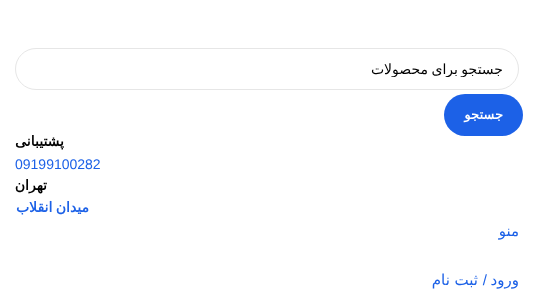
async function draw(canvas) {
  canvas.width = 534;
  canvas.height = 302;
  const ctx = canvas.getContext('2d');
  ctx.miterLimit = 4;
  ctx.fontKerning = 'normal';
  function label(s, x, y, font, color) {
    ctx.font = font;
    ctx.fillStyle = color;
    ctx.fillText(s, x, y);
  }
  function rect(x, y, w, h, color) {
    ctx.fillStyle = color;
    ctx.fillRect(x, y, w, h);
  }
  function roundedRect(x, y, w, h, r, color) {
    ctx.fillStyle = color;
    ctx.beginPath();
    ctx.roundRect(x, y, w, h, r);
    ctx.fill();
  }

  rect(0, 0, 534, 302, '#fff');
  ctx.beginPath();
  ctx.roundRect(15.5, 48.5, 503, 41, 20.5);
  ctx.strokeStyle = '#e6e6e6';
  ctx.stroke();
  ctx.save();
  ctx.beginPath();
  ctx.rect(31, 61, 472, 16);
  ctx.clip();
  ctx.wordSpacing = '-1px';
  ctx.direction = 'rtl';
  label('جستجو برای محصولات', 503, 74, '14px DejaVu Sans', '#000');
  ctx.restore();
  roundedRect(444, 94, 79, 42, 21, '#1c61e7');
  ctx.direction = 'rtl';
  label('جستجو', 503, 119, 'bold 13px DejaVu Sans', '#fff');
  label('پشتیبانی', 64, 146, 'bold 14px DejaVu Sans', '#000');
  ctx.direction = 'ltr';
  label('09199100282', 15, 169, '14px Liberation Sans', '#1c61e7');
  ctx.direction = 'rtl';
  label('تهران', 47, 190, 'bold 14px DejaVu Sans', '#000');
  ctx.wordSpacing = '-1px';
  label('میدان انقلاب', 89, 212, 'bold 14px DejaVu Sans', '#1c61e7');
  ctx.wordSpacing = '0px';
  label('منو', 519, 236, '15px DejaVu Sans', '#1c61e7');
  label('ورود', 519, 285, '15px DejaVu Sans', '#1c61e7');
  label('/', 487, 285, '15px Liberation Sans', '#1c61e7');
  label('ثبت نام', 478, 285, '15px DejaVu Sans', '#1c61e7');
}

draw(document.querySelector('canvas'));
